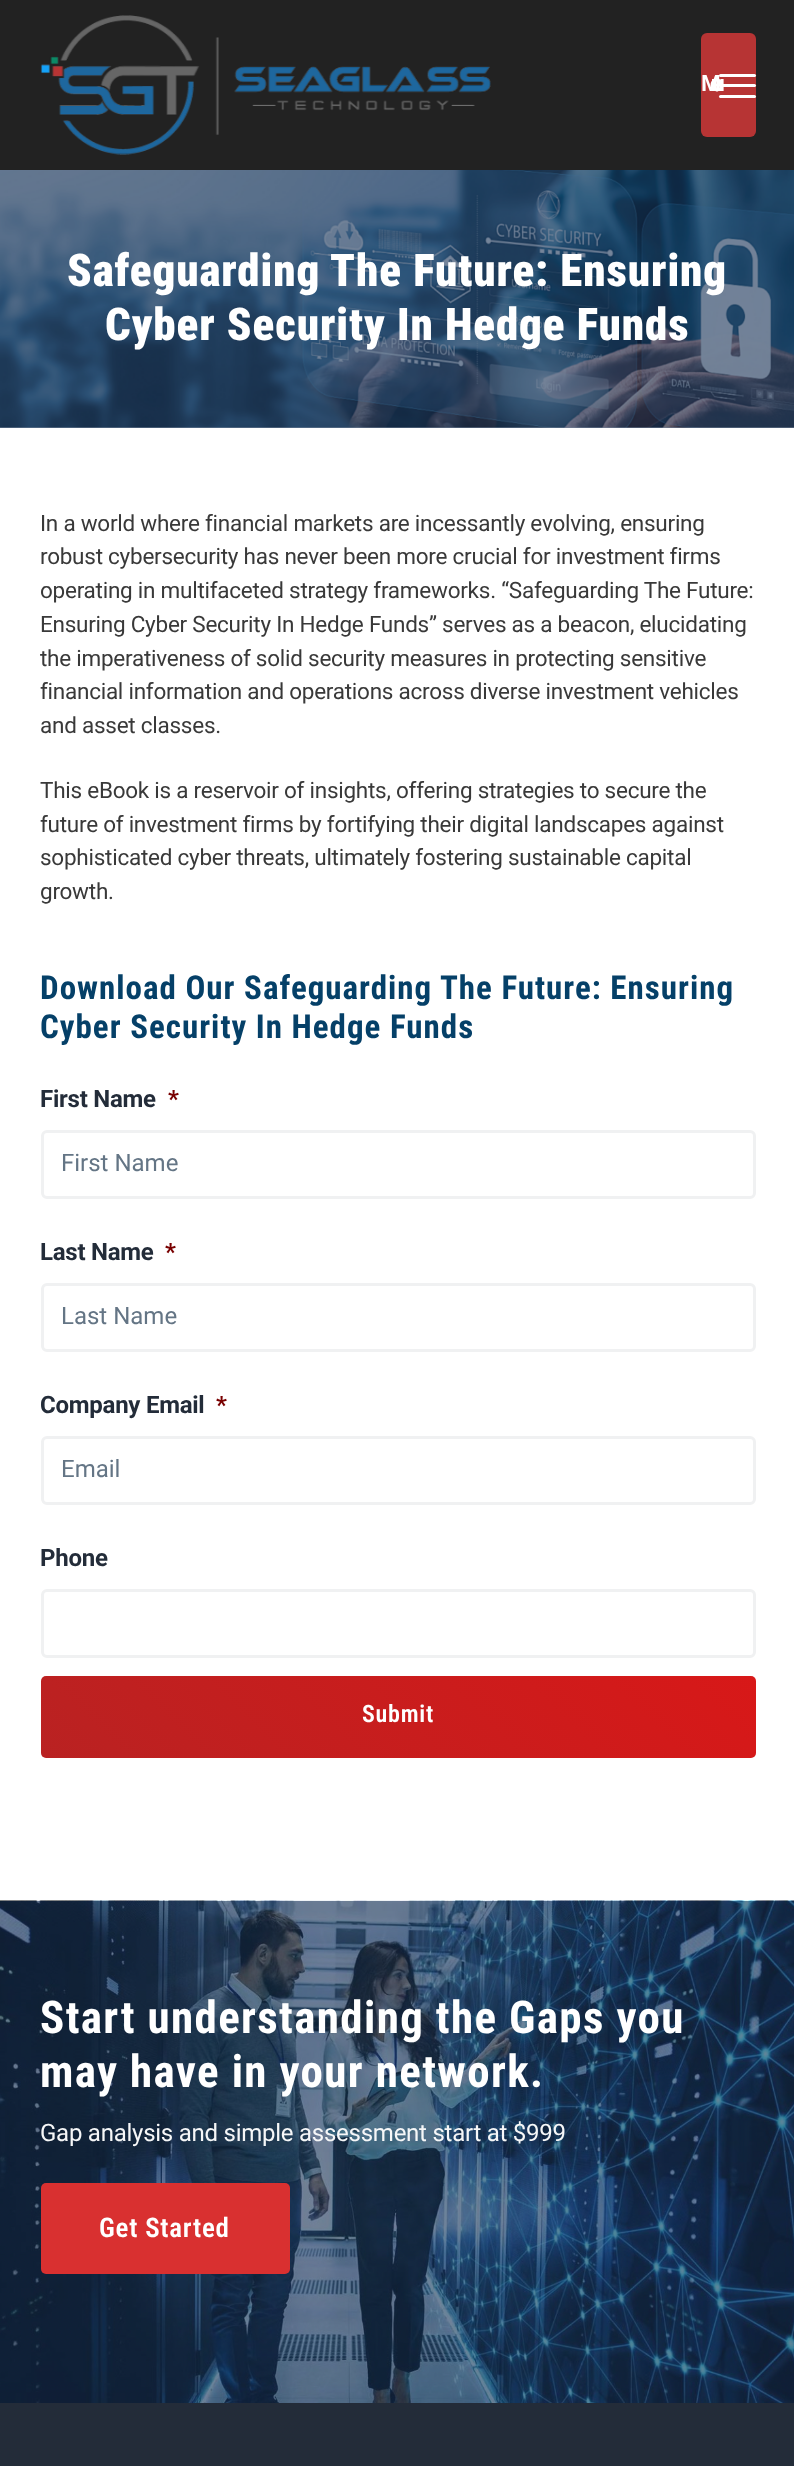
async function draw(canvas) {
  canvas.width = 794;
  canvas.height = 2466;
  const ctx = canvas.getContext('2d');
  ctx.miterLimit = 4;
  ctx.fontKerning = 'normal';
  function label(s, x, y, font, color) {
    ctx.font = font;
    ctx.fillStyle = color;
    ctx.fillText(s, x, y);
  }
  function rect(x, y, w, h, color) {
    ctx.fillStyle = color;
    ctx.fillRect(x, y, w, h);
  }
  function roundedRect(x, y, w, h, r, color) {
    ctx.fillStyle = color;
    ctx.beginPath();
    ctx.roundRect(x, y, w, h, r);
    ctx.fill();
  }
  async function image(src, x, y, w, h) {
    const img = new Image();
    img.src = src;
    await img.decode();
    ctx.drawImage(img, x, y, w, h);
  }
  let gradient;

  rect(0, 0, 794, 2466, '#fff');
  rect(0, 427, 794, 1, '#74849a');
  rect(0, 0, 794, 170, '#222');
  await image('assets/img1.png', 40, 15, 451, 140);
  roundedRect(701, 33, 55, 104, 6, '#b73434');
  ctx.letterSpacing = '-11px';
  label('Menu', 701, 91, '600 22.5px Roboto', '#fff');
  roundedRect(719, 84, 37, 3, 1.5, '#fff');
  roundedRect(719, 74, 37, 3, 1.5, '#fff');
  roundedRect(719, 95, 37, 3, 1.5, '#fff');
  await image('assets/img2.png', 0, 170, 794, 258);
  ctx.letterSpacing = '0.9px';
  label('Safeguarding The Future: Ensuring', 67, 286, '900 45px Roboto Condensed', '#fff');
  label('Cyber Security In Hedge Funds', 105, 340, '900 45px Roboto Condensed', '#fff');
  ctx.letterSpacing = '-0.25px';
  label('In a world where financial markets are incessantly evolving, ensuring', 40, 531, '22.5px Roboto', '#393939');
  label('robust cybersecurity has never been more crucial for investment firms', 40, 564, '22.5px Roboto', '#393939');
  label('operating in multifaceted strategy frameworks. “Safeguarding The Future:', 40, 598, '22.5px Roboto', '#393939');
  label('Ensuring Cyber Security In Hedge Funds” serves as a beacon, elucidating', 40, 632, '22.5px Roboto', '#393939');
  label('the imperativeness of solid security measures in protecting sensitive', 40, 666, '22.5px Roboto', '#393939');
  label('financial information and operations across diverse investment vehicles', 40, 699, '22.5px Roboto', '#393939');
  label('and asset classes.', 40, 733, '22.5px Roboto', '#393939');
  label('This eBook is a reservoir of insights, offering strategies to secure the', 40, 798, '22.5px Roboto', '#393939');
  label('future of investment firms by fortifying their digital landscapes against', 40, 832, '22.5px Roboto', '#393939');
  label('sophisticated cyber threats, ultimately fostering sustainable capital', 40, 865, '22.5px Roboto', '#393939');
  label('growth.', 40, 899, '22.5px Roboto', '#393939');
  ctx.letterSpacing = '1px';
  label('Download Our Safeguarding The Future: Ensuring', 40, 999, 'bold 33px Roboto Condensed', '#054068');
  label('Cyber Security In Hedge Funds', 40, 1038, 'bold 33px Roboto Condensed', '#054068');
  ctx.letterSpacing = '-0.25px';
  label('First Name', 40, 1107, 'bold 24px Roboto', '#232c39');
  label('*', 168, 1107, 'bold 24px Roboto', '#790000');
  ctx.beginPath();
  ctx.roundRect(42.5, 1131.5, 712, 66, 4.5);
  ctx.strokeStyle = '#f0f1f2';
  ctx.lineWidth = 3;
  ctx.stroke();
  ctx.letterSpacing = '0px';
  label('First Name', 61, 1171, '24px Roboto', '#647585');
  ctx.letterSpacing = '-0.25px';
  label('Last Name', 40, 1260, 'bold 24px Roboto', '#232c39');
  label('*', 165, 1260, 'bold 24px Roboto', '#790000');
  ctx.beginPath();
  ctx.roundRect(42.5, 1284.5, 712, 66, 4.5);
  ctx.stroke();
  ctx.letterSpacing = '0px';
  label('Last Name', 61, 1324, '24px Roboto', '#647585');
  ctx.letterSpacing = '-0.25px';
  label('Company Email', 40, 1413, 'bold 24px Roboto', '#232c39');
  label('*', 216, 1413, 'bold 24px Roboto', '#790000');
  ctx.beginPath();
  ctx.roundRect(42.5, 1437.5, 712, 66, 4.5);
  ctx.stroke();
  ctx.letterSpacing = '0px';
  label('Email', 61, 1477, '24px Roboto', '#647585');
  ctx.letterSpacing = '-0.25px';
  label('Phone', 40, 1566, 'bold 24px Roboto', '#232c39');
  ctx.beginPath();
  ctx.roundRect(42.5, 1590.5, 712, 66, 4.5);
  ctx.stroke();
  gradient = ctx.createLinearGradient(199, 1916, 598, 1517);
  gradient.addColorStop(0, '#b92222');
  gradient.addColorStop(1, '#d81818');
  ctx.fillStyle = gradient;
  ctx.beginPath();
  ctx.roundRect(41, 1676, 715, 82, 5);
  ctx.fill();
  ctx.letterSpacing = '0.75px';
  label('Submit', 362, 1722, '600 24px Roboto Condensed', '#fff');
  rect(0, 2403, 794, 63, '#232c39');
  await image('assets/img3.png', 0, 1900, 794, 503);
  ctx.letterSpacing = '1.35px';
  label('Start understanding the Gaps you', 40, 2033, 'bold 45px Roboto Condensed', '#fff');
  label('may have in your network.', 40, 2087, 'bold 45px Roboto Condensed', '#fff');
  ctx.letterSpacing = '-0.25px';
  label('Gap analysis and simple assessment start at $999', 40, 2141, '24px Roboto', '#f6f7f8');
  roundedRect(41, 2183, 249, 91, 5, '#d93030');
  ctx.letterSpacing = '0.75px';
  label('Get Started', 99, 2237, '600 27px Roboto Condensed', '#fff');
}

draw(document.querySelector('canvas'));
